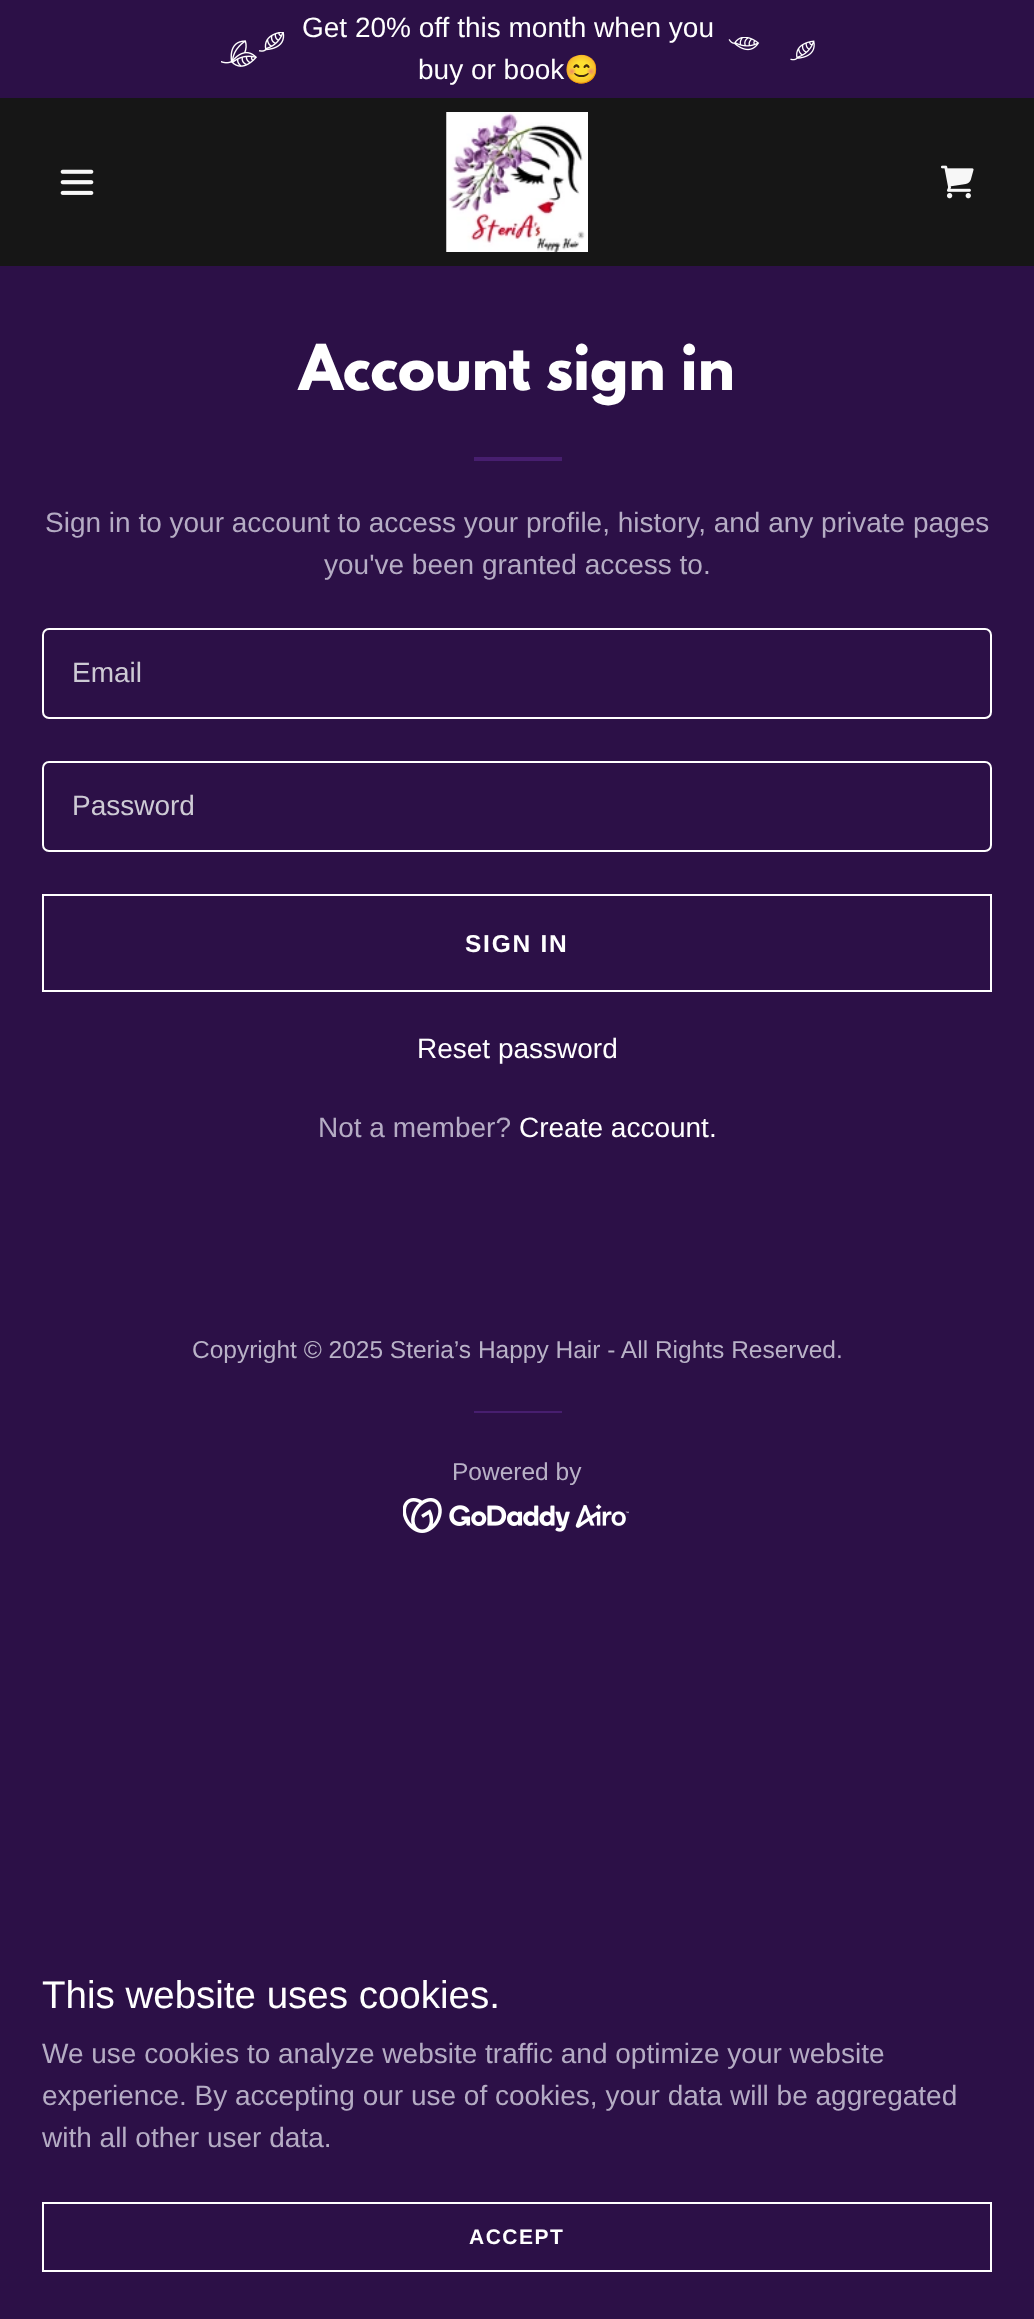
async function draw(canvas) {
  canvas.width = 1034;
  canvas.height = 2319;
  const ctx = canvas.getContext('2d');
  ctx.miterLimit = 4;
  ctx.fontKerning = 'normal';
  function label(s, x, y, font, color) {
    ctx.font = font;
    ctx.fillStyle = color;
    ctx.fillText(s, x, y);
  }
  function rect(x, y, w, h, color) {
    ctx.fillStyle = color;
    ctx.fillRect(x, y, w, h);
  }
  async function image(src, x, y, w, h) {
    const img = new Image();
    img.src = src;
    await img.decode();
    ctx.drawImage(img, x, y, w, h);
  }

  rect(0, 0, 1034, 2319, '#2c1047');
  rect(0, 98, 1034, 168, '#161616');
  await image('assets/img1.png', 221, 32, 64, 35);
  label('Get 20% off this month when you', 302, 37, '28px Liberation Sans', '#fff');
  label('buy or book', 418, 79, '28px Liberation Sans', '#fff');
  label('😊', 564, 79, '28px Noto Color Emoji', '#fff');
  await image('assets/img2.png', 728, 37, 87, 24);
  await image('assets/img3.png', 60, 169, 34, 26);
  await image('assets/img4.png', 446, 112, 142, 140);
  await image('assets/img5.png', 941, 165, 33, 34);
  label('Account sign in', 299, 390, 'bold 56px League Spartan', '#fff');
  rect(474, 457, 88, 4, '#471e6f');
  label('Sign in to your account to access your profile, history, and any private pages', 45, 532, '28px Liberation Sans', '#b5acc4');
  label('you\'ve been granted access to.', 324, 574, '28px Liberation Sans', '#b5acc4');
  ctx.beginPath();
  ctx.roundRect(43, 629, 948, 89, 6);
  ctx.strokeStyle = '#fff';
  ctx.lineWidth = 2;
  ctx.stroke();
  label('Email', 72, 682, '28px Liberation Sans', '#cdcad4');
  ctx.beginPath();
  ctx.roundRect(43, 762, 948, 89, 6);
  ctx.stroke();
  label('Password', 72, 815, '28px Liberation Sans', '#cdcad4');
  ctx.strokeRect(43, 895, 948, 96);
  ctx.letterSpacing = '1.75px';
  label('SIGN IN', 465, 952, 'bold 24.5px Liberation Sans', '#fff');
  ctx.letterSpacing = '0px';
  label('Reset password', 417, 1058, '28px Liberation Sans', '#fff');
  label('Not a member?', 318, 1137, '28px Liberation Sans', '#b5acc4');
  label('Create account.', 519, 1137, '28px Liberation Sans', '#fff');
  label('Copyright © 2025 Steria’s Happy Hair - All Rights Reserved.', 192, 1358, '24.5px Liberation Sans', '#b9b2c7');
  rect(474, 1411, 88, 2, '#471e6f');
  label('Powered by', 452, 1480, '24.5px Liberation Sans', '#b9b2c7');
  await image('assets/img6.png', 403, 1498, 226, 35);
  label('This website uses cookies.', 42, 2008, '38.5px Liberation Sans', '#fff');
  label('We use cookies to analyze website traffic and optimize your website', 42, 2063, '28px Liberation Sans', '#b5acc4');
  label('experience. By accepting our use of cookies, your data will be aggregated', 42, 2105, '28px Liberation Sans', '#b5acc4');
  label('with all other user data.', 42, 2147, '28px Liberation Sans', '#b5acc4');
  ctx.strokeRect(43, 2203, 948, 68);
  ctx.letterSpacing = '1.5px';
  label('ACCEPT', 469, 2244, 'bold 21px Liberation Sans', '#fff');
}

draw(document.querySelector('canvas'));
